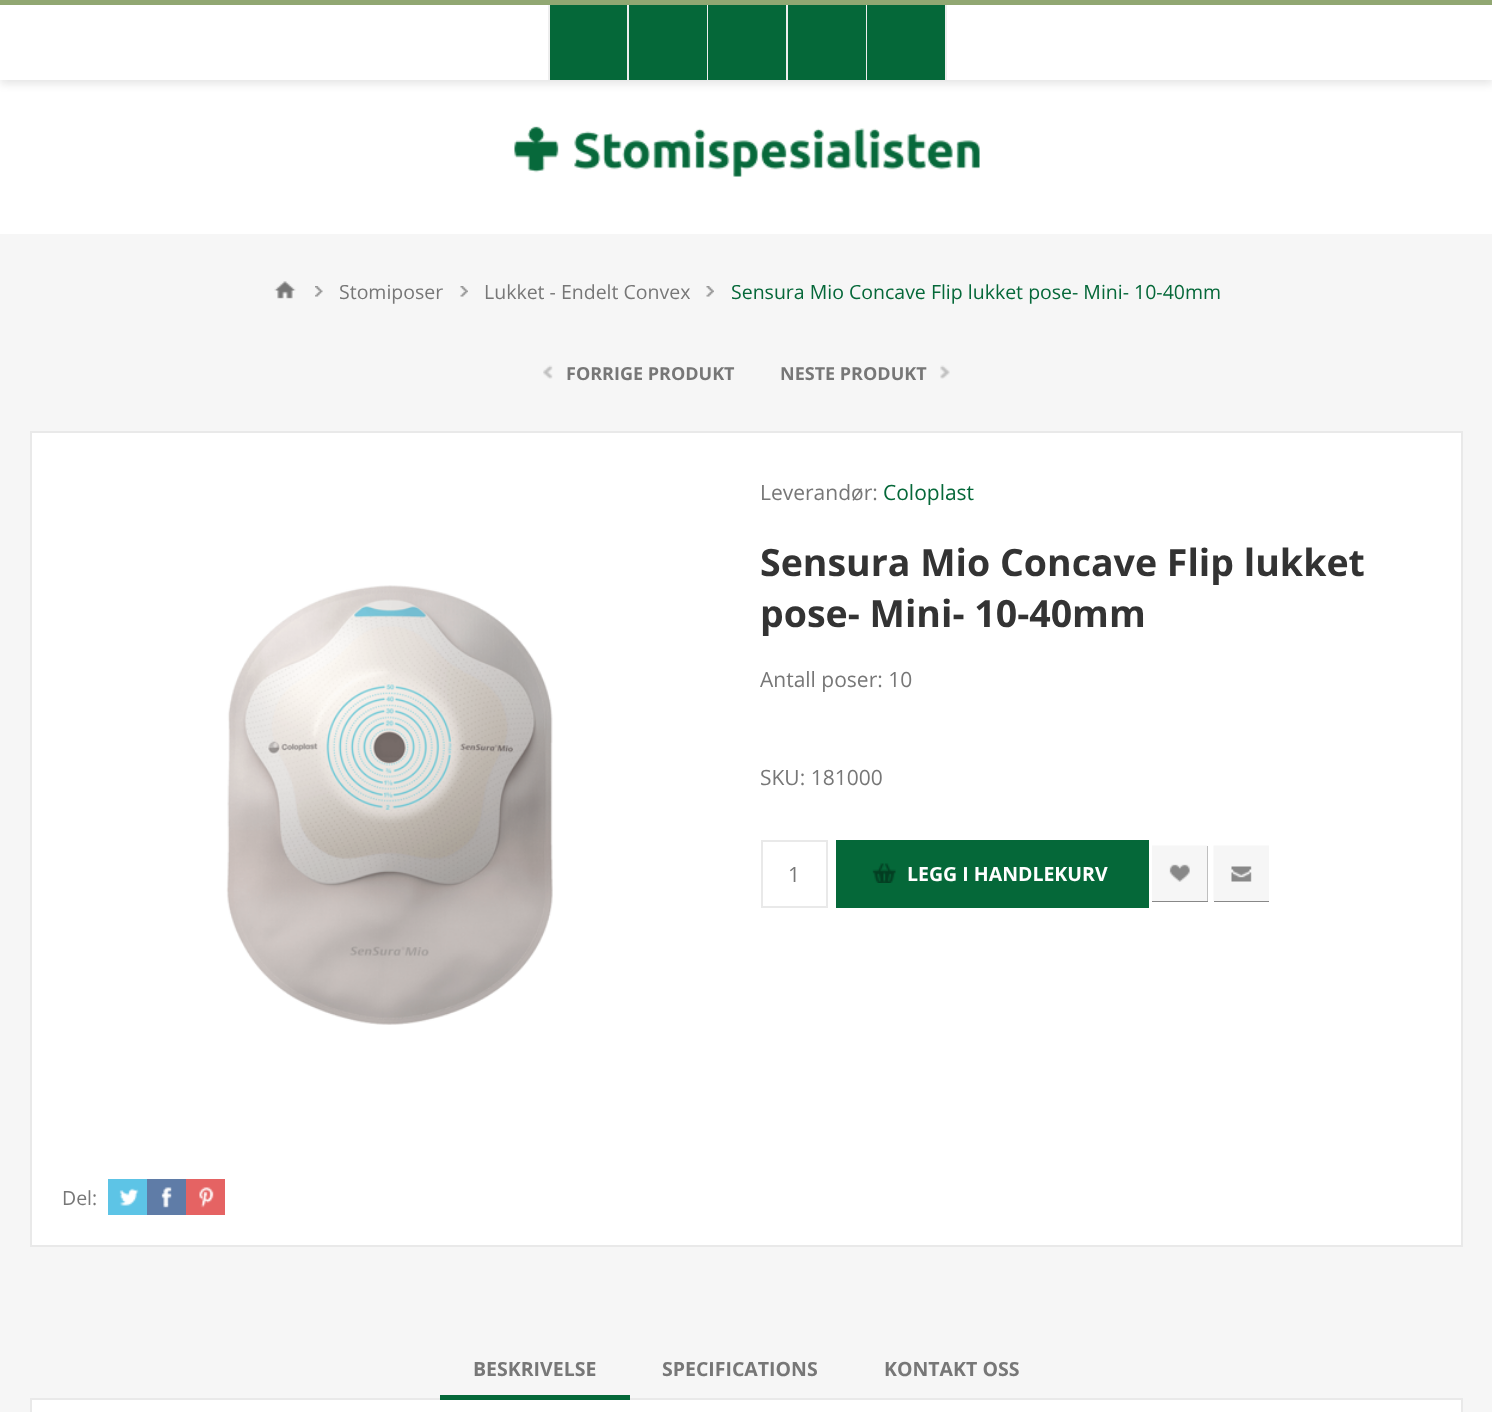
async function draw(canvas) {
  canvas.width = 1492;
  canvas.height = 1412;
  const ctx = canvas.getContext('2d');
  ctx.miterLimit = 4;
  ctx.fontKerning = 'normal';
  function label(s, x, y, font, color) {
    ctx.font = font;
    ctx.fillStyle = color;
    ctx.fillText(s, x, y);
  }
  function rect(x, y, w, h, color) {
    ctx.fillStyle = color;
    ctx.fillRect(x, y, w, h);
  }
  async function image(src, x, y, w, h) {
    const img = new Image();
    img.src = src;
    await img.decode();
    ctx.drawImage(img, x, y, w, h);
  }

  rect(0, 0, 1492, 1412, '#f6f6f6');
  rect(0, 80, 1492, 154, '#fff');
  ctx.fillStyle = '#0000001a';
  ctx.filter = 'blur(4px)';
  ctx.beginPath();
  ctx.rect(0, 5, 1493, 79);
  ctx.fill();
  ctx.filter = 'none';
  rect(0, 5, 1492, 75, '#fff');
  rect(0, 0, 1492, 5, '#91a772');
  rect(550, 5, 77, 75, '#056839');
  rect(627, 5, 2, 75, '#eee');
  rect(548, 5, 2, 75, '#eee');
  rect(629, 5, 78, 75, '#056839');
  rect(707, 5, 1, 75, '#eee');
  rect(708, 5, 78, 75, '#056839');
  rect(786, 5, 2, 75, '#eee');
  rect(788, 5, 78, 75, '#056839');
  rect(866, 5, 1, 75, '#eee');
  rect(867, 5, 78, 75, '#056839');
  rect(945, 5, 2, 75, '#eee');
  await image('assets/img1.png', 514, 126, 466, 51);
  await image('assets/img2.png', 274, 281, 22, 18);
  await image('assets/img3.png', 315, 286, 8, 11);
  label('Stomiposer', 339, 299, '19.5px Open Sans', '#777');
  await image('assets/img4.png', 460, 286, 8, 11);
  label('Lukket - Endelt Convex', 484, 299, '19.5px Open Sans', '#777');
  await image('assets/img5.png', 706, 286, 8, 11);
  label('Sensura Mio Concave Flip lukket pose- Mini- 10-40mm', 731, 299, '19.5px Open Sans', '#056839');
  await image('assets/img6.png', 543, 365, 10, 14);
  label('FORRIGE PRODUKT', 566, 380, 'bold 18px Open Sans', '#777');
  label('NESTE PRODUKT', 780, 380, 'bold 18px Open Sans', '#777');
  await image('assets/img7.png', 940, 365, 10, 14);
  ctx.fillStyle = '#fff';
  ctx.beginPath();
  ctx.rect(31, 432, 1431, 814);
  ctx.fill();
  ctx.strokeStyle = '#e9e9e9';
  ctx.lineWidth = 2;
  ctx.stroke();
  await image('assets/img8.png', 226, 585, 327, 440);
  label('Leverandør:', 760, 500, '21px Open Sans', '#777');
  label('Coloplast', 883, 500, '21px Open Sans', '#056839');
  label('Sensura Mio Concave Flip lukket', 760, 576, 'bold 37.5px Open Sans', '#333');
  label('pose- Mini- 10-40mm', 760, 627, 'bold 37.5px Open Sans', '#333');
  label('Antall poser: 10', 760, 687, '21px Open Sans', '#777');
  label('SKU: 181000', 760, 785, '21px Open Sans', '#777');
  ctx.strokeRect(762, 841, 65, 66);
  label('1', 788, 882, '21px Open Sans', '#777');
  rect(836, 840, 313, 68, '#056839');
  await image('assets/img9.png', 872, 863, 24, 20);
  label('LEGG I HANDLEKURV', 907, 881, 'bold 19.5px Open Sans', '#fff');
  rect(1152, 846, 56, 56, '#888');
  await image('assets/img10.png', 1152, 845, 56, 56);
  rect(1214, 866, 55, 36, '#888');
  await image('assets/img11.png', 1213, 845, 56, 56);
  label('Del:', 62, 1205, '19.5px Open Sans', '#777');
  rect(108, 1179, 39, 36, '#5dc4e6');
  await image('assets/img12.png', 119, 1188, 20, 18);
  rect(147, 1179, 39, 36, '#5f7ca7');
  await image('assets/img13.png', 161, 1187, 11, 21);
  rect(186, 1179, 39, 36, '#e56363');
  await image('assets/img14.png', 199, 1187, 15, 21);
  label('BESKRIVELSE', 473, 1376, 'bold 19.5px Open Sans', '#777');
  ctx.fillStyle = '#fff';
  ctx.beginPath();
  ctx.rect(31, 1399, 1431, 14);
  ctx.fill();
  ctx.stroke();
  rect(440, 1395, 190, 5, '#056839');
  label('SPECIFICATIONS', 662, 1376, 'bold 19.5px Open Sans', '#777');
  label('KONTAKT OSS', 884, 1376, 'bold 19.5px Open Sans', '#777');
}

draw(document.querySelector('canvas'));
